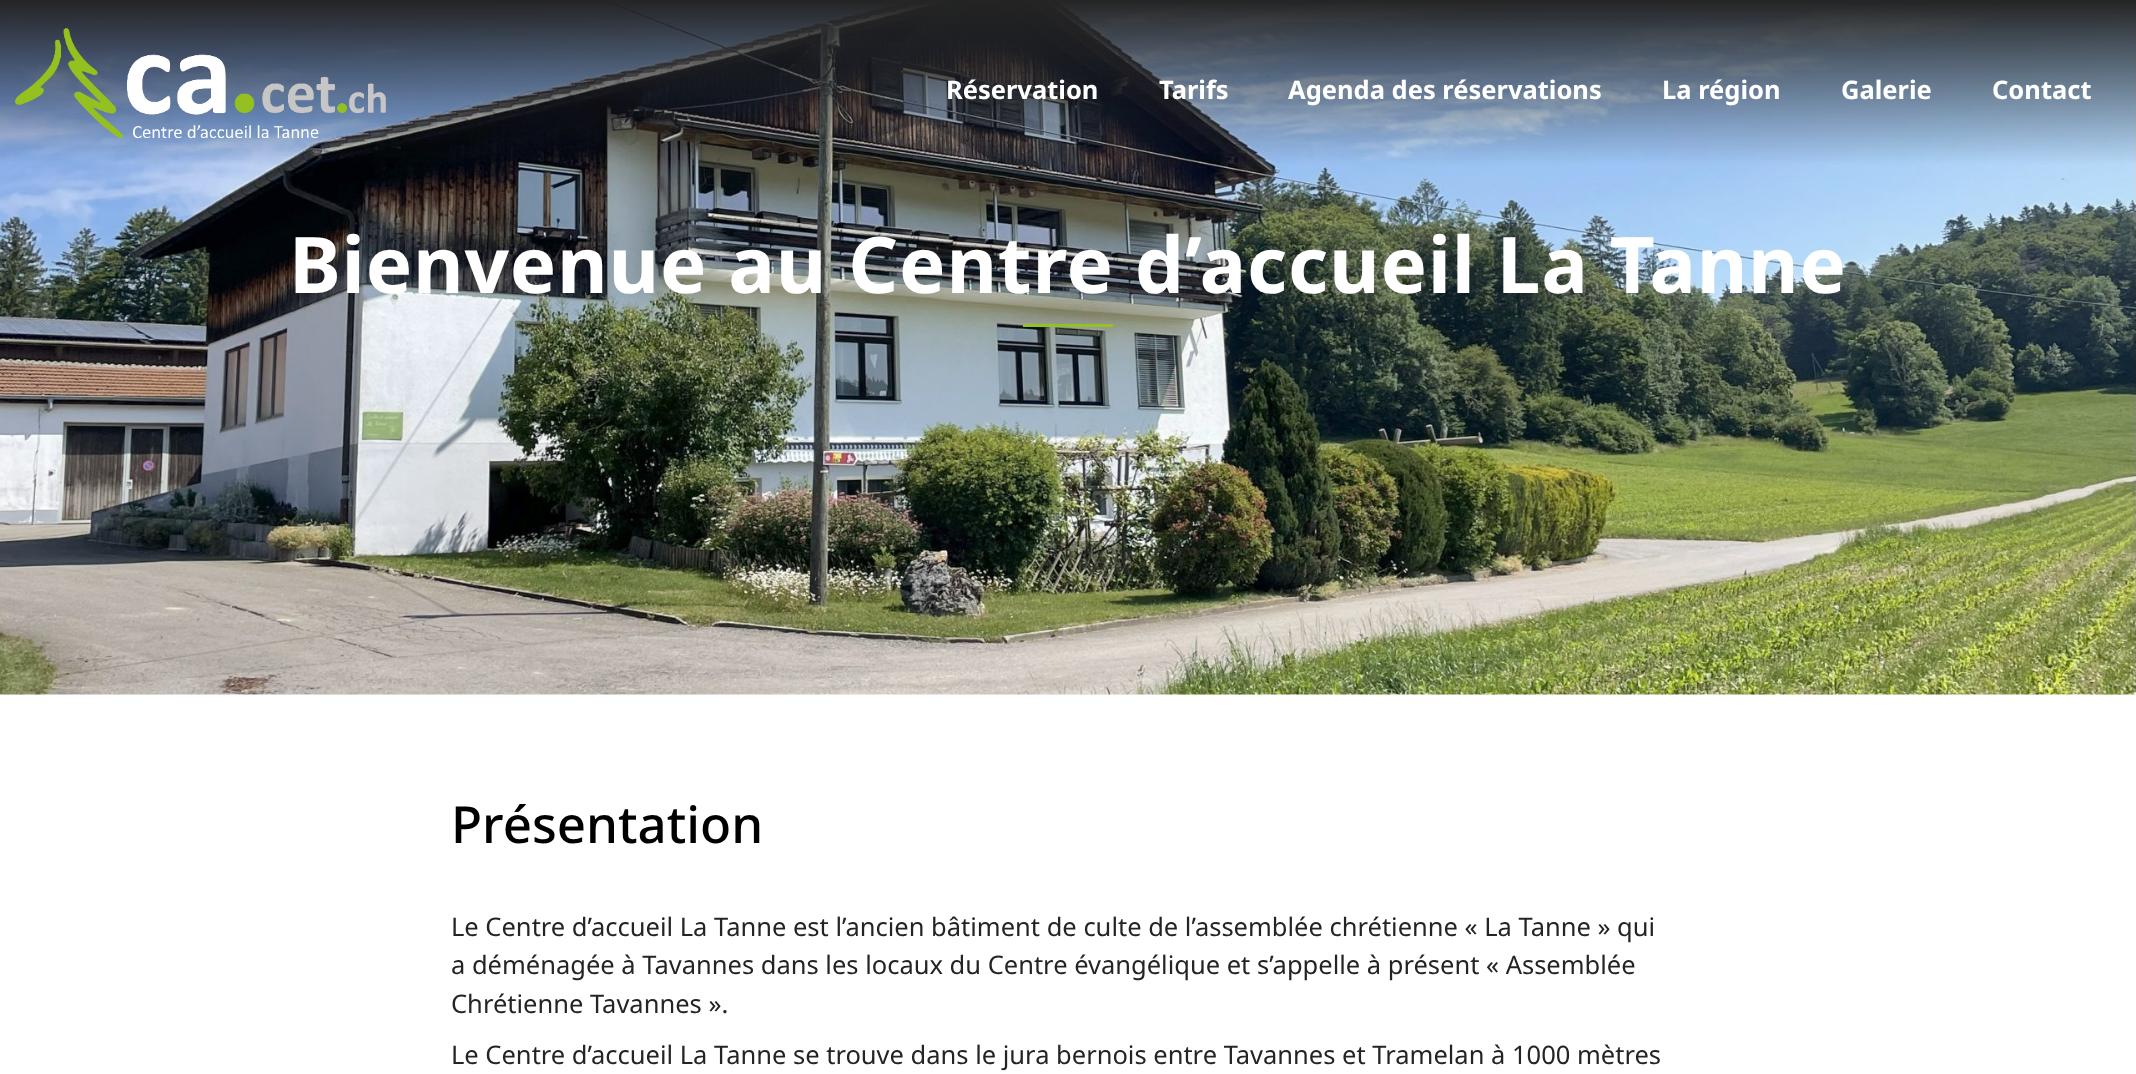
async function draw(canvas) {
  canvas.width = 2136;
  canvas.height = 1074;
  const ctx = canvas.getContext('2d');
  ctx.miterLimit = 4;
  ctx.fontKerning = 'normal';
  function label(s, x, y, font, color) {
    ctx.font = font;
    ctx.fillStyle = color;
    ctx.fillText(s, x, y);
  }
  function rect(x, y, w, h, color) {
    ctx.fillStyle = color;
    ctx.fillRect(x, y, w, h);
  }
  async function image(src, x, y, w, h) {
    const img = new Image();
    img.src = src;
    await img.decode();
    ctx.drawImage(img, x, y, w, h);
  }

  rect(0, 0, 2136, 1074, '#fff');
  await image('assets/img2.png', 0, 0, 2136, 695);
  await image('assets/img1.png', 15, 28, 371, 110);
  label('Réservation', 946, 99, 'bold 25.5px Noto Sans', '#fff');
  label('Tarifs', 1159, 99, 'bold 25.5px Noto Sans', '#fff');
  label('Agenda des réservations', 1288, 99, 'bold 25.5px Noto Sans', '#fff');
  label('La région', 1662, 99, 'bold 25.5px Noto Sans', '#fff');
  label('Galerie', 1841, 99, 'bold 25.5px Noto Sans', '#fff');
  label('Contact', 1992, 99, 'bold 25.5px Noto Sans', '#fff');
  ctx.letterSpacing = '0.75px';
  label('Bienvenue au Centre d’accueil La Tanne', 289, 293, 'bold 78px Noto Sans', '#fff');
  rect(1023, 324, 90, 3, '#94c125');
  ctx.letterSpacing = '0px';
  label('Présentation', 451, 843, '500 51px Noto Sans', '#000');
  label('Le Centre d’accueil La Tanne est l’ancien bâtiment de culte de l’assemblée chrétienne « La Tanne » qui', 451, 936, '25.5px Noto Sans', '#242424');
  label('a déménagée à Tavannes dans les locaux du Centre évangélique et s’appelle à présent « Assemblée', 451, 974, '25.5px Noto Sans', '#242424');
  label('Chrétienne Tavannes ».', 451, 1013, '25.5px Noto Sans', '#242424');
  label('Le Centre d’accueil La Tanne se trouve dans le jura bernois entre Tavannes et Tramelan à 1000 mètres', 451, 1064, '25.5px Noto Sans', '#242424');
}

draw(document.querySelector('canvas'));
